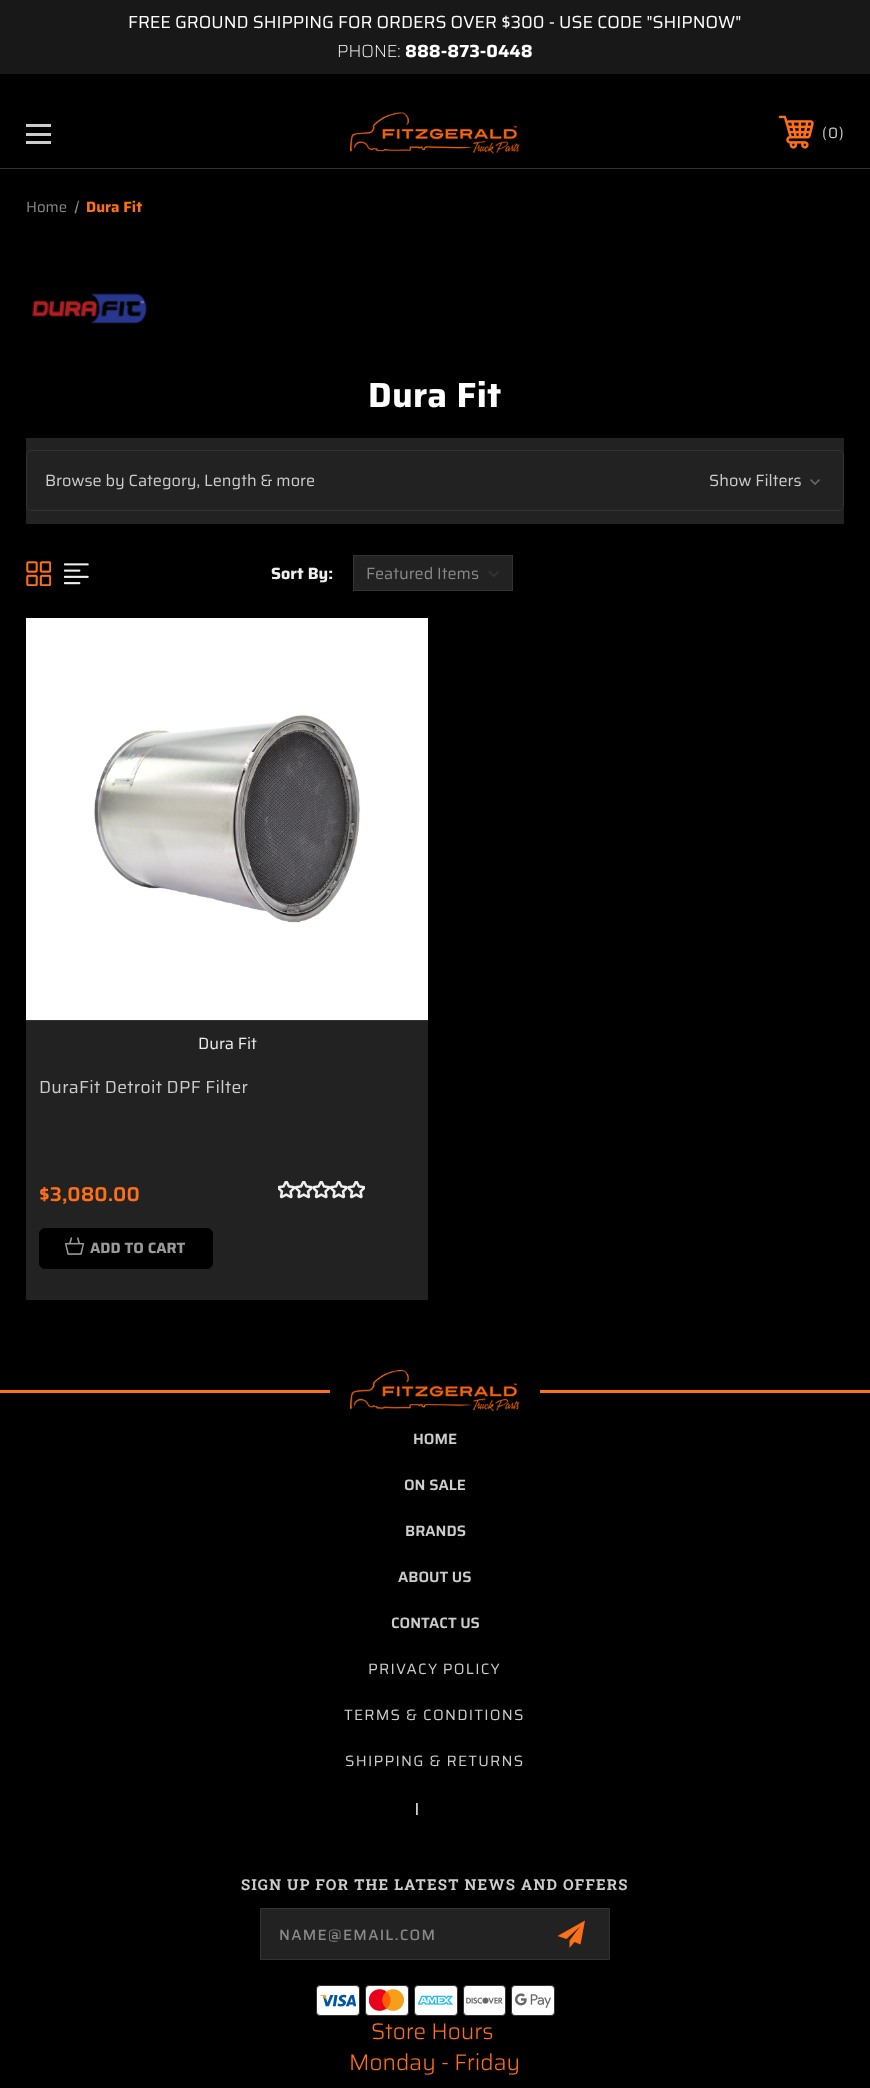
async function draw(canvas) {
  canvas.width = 870;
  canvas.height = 2088;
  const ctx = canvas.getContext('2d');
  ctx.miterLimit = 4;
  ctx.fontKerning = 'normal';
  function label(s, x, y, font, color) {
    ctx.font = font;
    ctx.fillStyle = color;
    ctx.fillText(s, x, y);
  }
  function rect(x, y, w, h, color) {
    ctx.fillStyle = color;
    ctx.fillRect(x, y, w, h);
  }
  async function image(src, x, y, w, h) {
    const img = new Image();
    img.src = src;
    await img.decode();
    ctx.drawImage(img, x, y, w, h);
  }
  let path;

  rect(0, 0, 870, 2088, '#000');
  rect(0, 0, 870, 74, '#181818');
  label('FREE GROUND SHIPPING FOR ORDERS OVER $300 - USE CODE "SHIPNOW"', 128, 28, '17.5px Saira', '#fff');
  label('PHONE:', 337, 57, '200 17.5px Saira', '#fff');
  label('888-873-0448', 405, 57, 'bold 17.5px Saira', '#fff');
  rect(0, 168, 870, 1, '#333');
  rect(26, 133, 25, 3, '#ccc');
  rect(26, 124, 25, 3, '#ccc');
  rect(26, 141, 25, 3, '#ccc');
  await image('assets/img1.png', 350, 112, 170, 42);
  await image('assets/img2.png', 778, 115, 36, 34);
  label('(', 822, 138, '15px Saira', '#ccc');
  label('0', 828, 138, '15px Saira', '#ccc');
  label(')', 839, 138, '15px Saira', '#ccc');
  label('Home', 26, 212, '15px Saira', '#888');
  path = new Path2D('M78 200.5L79 201L76 213.5L74.5 213Z');
  ctx.fill(path);
  label('Dura Fit', 86, 212, 'bold 15px Saira', '#fd6f19');
  await image('assets/img3.png', 32, 293, 115, 31);
  ctx.letterSpacing = '0.3px';
  label('Dura Fit', 368, 407, 'bold 35px Saira', '#fff');
  rect(26, 438, 818, 86, '#222');
  ctx.beginPath();
  ctx.roundRect(26.5, 450.5, 817, 60, 4.5);
  ctx.strokeStyle = '#333';
  ctx.stroke();
  ctx.letterSpacing = '0px';
  label('Browse by Category, Length & more', 45, 486, '16.25px Saira', '#ccc');
  label('Show Filters', 709, 486, '16.25px Saira', '#ccc');
  await image('assets/img4.png', 810, 479, 10, 6);
  await image('assets/img5.png', 26, 561, 25, 25);
  await image('assets/img6.png', 64, 563, 25, 22);
  label('Sort By:', 271, 579, 'bold 16.25px Saira', '#eee');
  rect(354, 556, 158, 34, '#222');
  await image('assets/img7.png', 488, 571, 11, 6);
  ctx.strokeRect(353.5, 555.5, 159, 35);
  label('Featured Items', 366, 579, '16.25px Saira', '#888');
  rect(26, 1021, 402, 279, '#222');
  rect(26, 618, 402, 402, '#fff');
  await image('assets/img8.png', 94, 715, 266, 208);
  rect(26, 1020, 402, 1, '#333');
  label('Dura Fit', 198, 1049, '16.25px Saira', '#eee');
  ctx.letterSpacing = '0.3px';
  label('DuraFit Detroit DPF Filter', 39, 1093, '17.5px Saira', '#ccc');
  ctx.letterSpacing = '0px';
  label('$3,080.00', 39, 1201, '600 20px Saira', '#fd6f19');
  await image('assets/img9.png', 278, 1181, 17, 18);
  await image('assets/img10.png', 295, 1181, 18, 18);
  await image('assets/img9.png', 313, 1181, 17, 18);
  await image('assets/img10.png', 330, 1181, 18, 18);
  await image('assets/img9.png', 348, 1181, 17, 18);
  ctx.fillStyle = '#000';
  ctx.beginPath();
  ctx.roundRect(39.5, 1228.5, 173, 40, 5.5);
  ctx.fill();
  ctx.strokeStyle = '#000';
  ctx.stroke();
  await image('assets/img11.png', 65, 1237, 20, 18);
  label('ADD TO CART', 90, 1253, 'bold 15px Saira', '#999');
  rect(0, 1390, 870, 3, '#fd6f19');
  rect(330, 1390, 210, 3, '#000');
  await image('assets/img12.png', 350, 1370, 170, 42);
  label('HOME', 413, 1444, '600 15px Saira', '#ccc');
  label('ON SALE', 404, 1490, '600 15px Saira', '#ccc');
  label('BRANDS', 405, 1536, '600 15px Saira', '#ccc');
  label('ABOUT US', 398, 1582, '600 15px Saira', '#ccc');
  label('CONTACT US', 391, 1628, '600 15px Saira', '#ccc');
  ctx.letterSpacing = '1.25px';
  label('PRIVACY POLICY', 368, 1674, '15px Saira', '#ccc');
  label('TERMS & CONDITIONS', 344, 1720, '15px Saira', '#ccc');
  label('SHIPPING & RETURNS', 345, 1766, '15px Saira', '#ccc');
  await image('assets/img13.png', 416, 1803, 2, 12);
  label('SIGN UP FOR THE LATEST NEWS AND OFFERS', 241, 1890, 'bold 15px Roboto Slab', '#ccc');
  ctx.fillStyle = '#222';
  ctx.beginPath();
  ctx.rect(260.5, 1908.5, 349, 51);
  ctx.fill();
  ctx.strokeStyle = '#333';
  ctx.stroke();
  label('NAME@EMAIL.COM', 279, 1940, '500 15px Saira', '#888');
  ctx.fillStyle = '#fd6f19';
  path = new Path2D('M585 1920.5L557.5 1936L566.5 1939L580 1926.5L569.5 1940.5V1948L574.5 1942L580.5 1944.5Z');
  ctx.fill(path);
  ctx.fillStyle = '#fff';
  ctx.beginPath();
  ctx.roundRect(316.5, 1985.5, 43, 30, 3.5);
  ctx.fill();
  ctx.stroke();
  await image('assets/img14.png', 320, 1994, 36, 13);
  ctx.beginPath();
  ctx.roundRect(365.5, 1985.5, 43, 30, 3.5);
  ctx.fill();
  ctx.stroke();
  await image('assets/img15.png', 369, 1989, 35, 22);
  ctx.beginPath();
  ctx.roundRect(414.5, 1985.5, 43, 30, 3.5);
  ctx.fill();
  ctx.stroke();
  await image('assets/img16.png', 418, 1995, 35, 10);
  ctx.beginPath();
  ctx.roundRect(463.5, 1985.5, 42, 30, 3.5);
  ctx.fill();
  ctx.stroke();
  await image('assets/img17.png', 466, 1997, 37, 7);
  ctx.beginPath();
  ctx.roundRect(511.5, 1985.5, 43, 30, 3.5);
  ctx.fill();
  ctx.stroke();
  await image('assets/img18.png', 515, 1993, 36, 15);
  ctx.letterSpacing = '0px';
  label('Store Hours', 371, 2039, '300 22.5px Saira', '#fd6f19');
  label('Monday - Friday', 349, 2070, '300 22.5px Saira', '#fd6f19');
}

draw(document.querySelector('canvas'));
